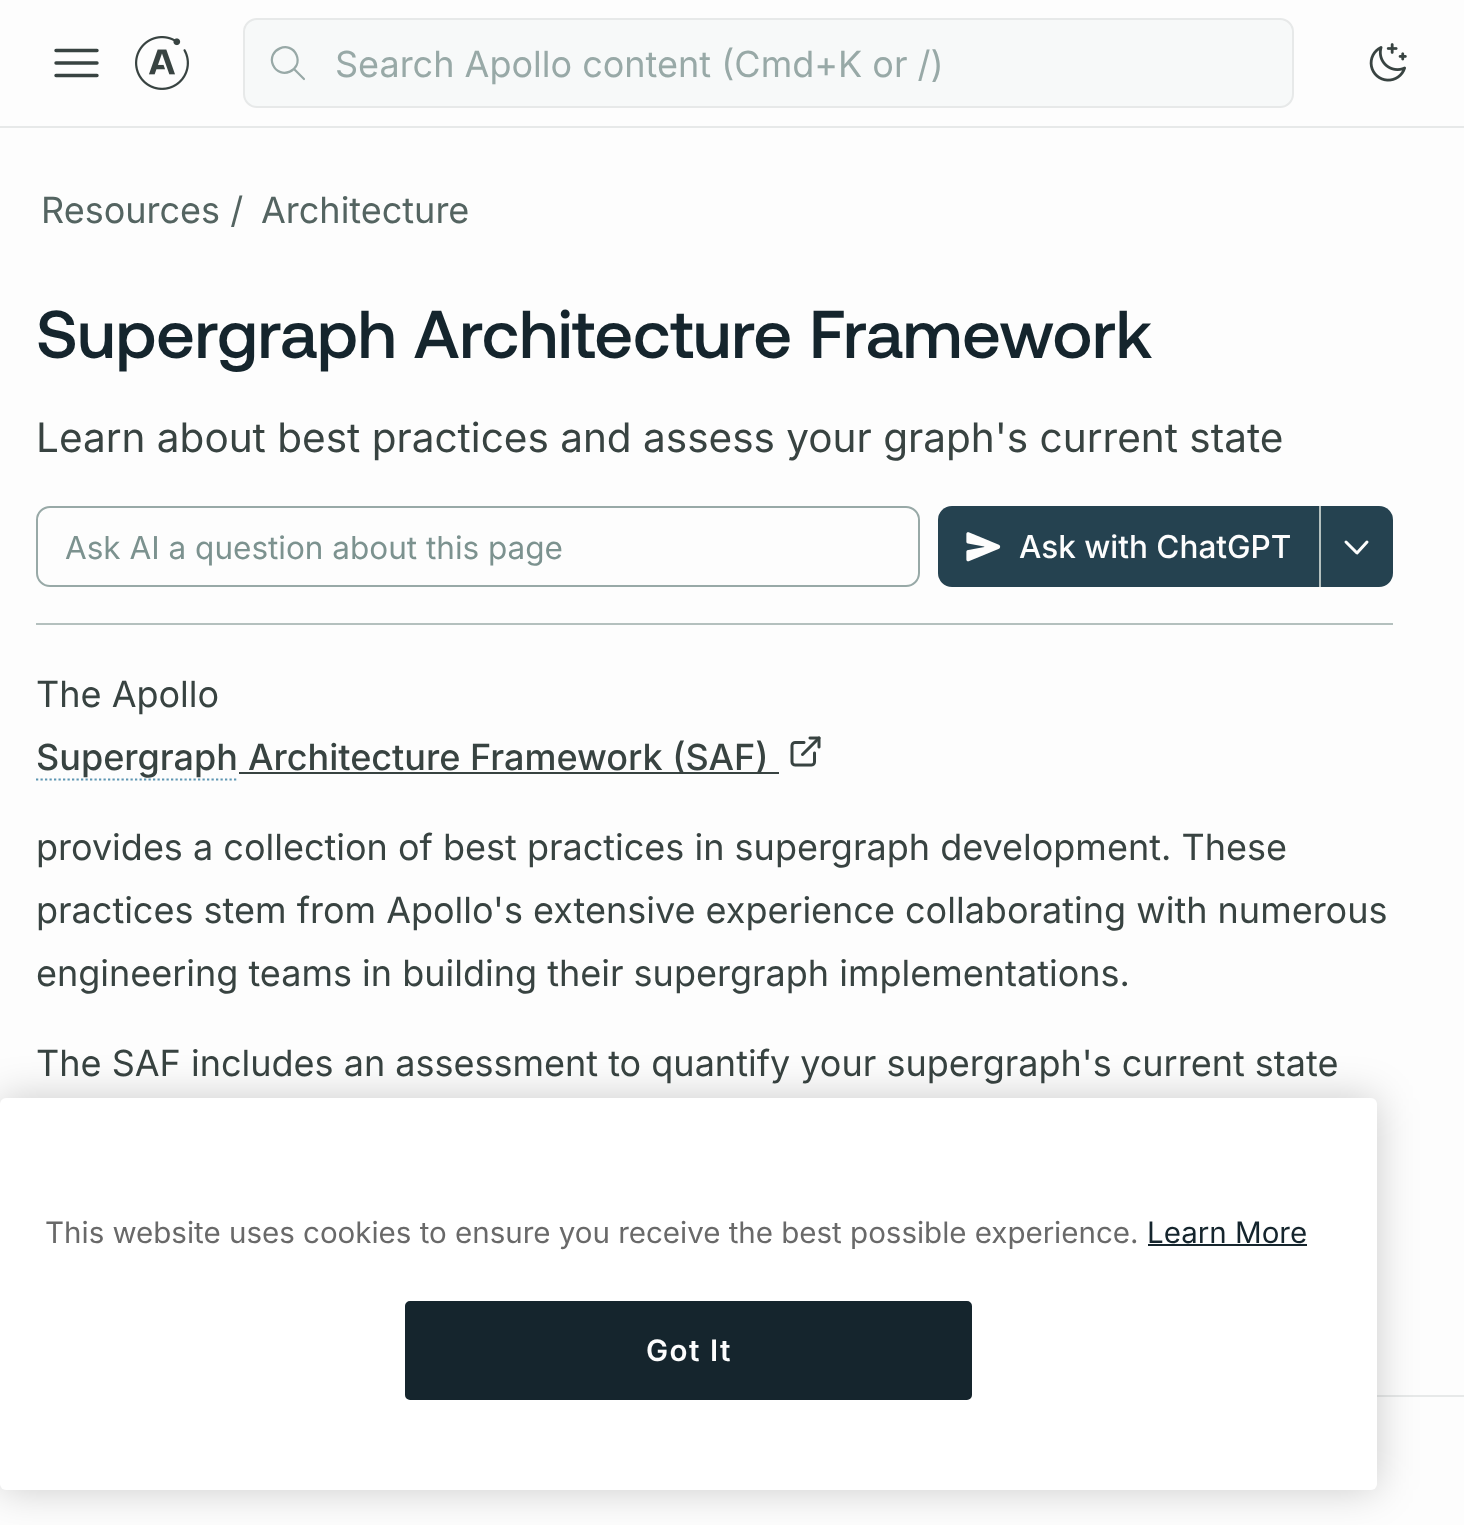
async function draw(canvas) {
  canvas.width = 1464;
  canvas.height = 1525;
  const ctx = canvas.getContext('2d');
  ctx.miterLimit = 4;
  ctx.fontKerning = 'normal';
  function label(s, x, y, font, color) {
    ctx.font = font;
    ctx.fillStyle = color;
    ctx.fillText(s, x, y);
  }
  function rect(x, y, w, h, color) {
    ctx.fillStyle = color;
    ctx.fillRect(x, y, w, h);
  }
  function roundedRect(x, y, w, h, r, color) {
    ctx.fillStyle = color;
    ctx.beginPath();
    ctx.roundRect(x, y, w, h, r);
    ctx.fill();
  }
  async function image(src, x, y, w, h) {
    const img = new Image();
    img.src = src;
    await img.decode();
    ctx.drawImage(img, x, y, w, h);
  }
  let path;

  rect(0, 0, 1464, 1525, '#fdfdfd');
  rect(0, 126, 1464, 2, '#e7e9e9');
  path = new Path2D('M56 75.5H97M56 63H97M56 50.5H97');
  ctx.strokeStyle = '#384341';
  ctx.lineWidth = 3.4;
  ctx.lineCap = 'round';
  ctx.lineJoin = 'round';
  ctx.stroke(path);
  await image('assets/img1.png', 135, 36, 54, 54);
  ctx.fillStyle = '#f7f9f9';
  ctx.beginPath();
  ctx.roundRect(244, 19, 1049, 88, 13);
  ctx.fill();
  ctx.strokeStyle = '#e7e9e9';
  ctx.lineWidth = 2;
  ctx.lineJoin = 'miter';
  ctx.stroke();
  path = new Path2D('M294 69L304 79M273 65C280 80.5 303 70.5 296.5 55C290 39.5 266.5 49.5 273 65');
  ctx.strokeStyle = '#98a9a7';
  ctx.lineWidth = 2.2;
  ctx.lineJoin = 'round';
  ctx.stroke(path);
  label('Search Apollo content (Cmd+K or /)', 335, 77, '36px Inter', '#98a9a7');
  await image('assets/img2.png', 1369, 43, 38, 39);
  label('Resources /', 41, 223, '36px Inter', '#546461');
  label('Architecture', 261, 223, '36px Inter', '#546461');
  label('Supergraph Architecture Framework', 36, 358, '500 67.5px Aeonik', '#15252d');
  label('Learn about best practices and assess your graph\'s current state', 36, 452, '40.5px Inter', '#384341');
  ctx.beginPath();
  ctx.roundRect(37, 507, 882, 79, 13);
  ctx.lineWidth = 2;
  ctx.lineJoin = 'miter';
  ctx.stroke();
  label('Ask AI a question about this page', 65, 559, '31.5px Inter', '#7c928f');
  ctx.fillStyle = '#254250';
  ctx.beginPath();
  ctx.roundRect(938, 506, 381, 81, [14, 0, 0, 14]);
  ctx.fill();
  rect(1319, 506, 2, 81, '#b4c0be');
  await image('assets/img3.png', 966, 532, 35, 30);
  label('Ask with ChatGPT', 1019, 558, '500 31.5px Inter', '#fdfdfd');
  ctx.fillStyle = '#254250';
  ctx.beginPath();
  ctx.roundRect(1321, 506, 72, 81, [0, 14, 14, 0]);
  ctx.fill();
  path = new Path2D('M1367 542L1357 553L1346 542');
  ctx.strokeStyle = '#fdfdfd';
  ctx.lineWidth = 3;
  ctx.lineJoin = 'round';
  ctx.stroke(path);
  rect(36, 623, 1357, 2, '#b4c0be');
  label('The Apollo', 36, 707, '36px Inter', '#384341');
  label('Supergraph', 36, 770, '500 36px Inter', '#384341');
  path = new Path2D('M36 779.5H238');
  ctx.strokeStyle = '#5c95b2';
  ctx.lineWidth = 2.2;
  ctx.lineCap = 'butt';
  ctx.lineJoin = 'miter';
  ctx.setLineDash([2.25, 2.25]);
  ctx.stroke(path);
  rect(239, 772, 540, 2, '#384341');
  label('Architecture Framework (SAF)', 248, 770, '500 36px Inter', '#384341');
  await image('assets/img4.png', 790, 736, 31, 31);
  label('provides a collection of best practices in supergraph development. These', 36, 860, '36px Inter', '#384341');
  label('practices stem from Apollo\'s extensive experience collaborating with numerous', 36, 923, '36px Inter', '#384341');
  label('engineering teams in building their supergraph implementations.', 36, 986, '36px Inter', '#384341');
  label('The SAF includes an assessment to quantify your supergraph\'s current state', 36, 1076, '36px Inter', '#384341');
  rect(1377, 1395, 87, 2, '#e7e9e9');
  ctx.fillStyle = '#00000033';
  ctx.filter = 'blur(20px)';
  ctx.beginPath();
  ctx.roundRect(0, 1098, 1377, 392, 6);
  ctx.fill();
  ctx.filter = 'none';
  roundedRect(0, 1098, 1377, 392, 6, '#fff');
  label('This website uses cookies to ensure you receive the best possible experience.', 45, 1243, '29.5px Inter', '#696969');
  label('Learn More', 1147, 1243, '29.5px Inter', '#15252d');
  rect(1148, 1244, 159, 2, '#15252d');
  ctx.beginPath();
  ctx.roundRect(406, 1302, 565, 97, 4);
  ctx.fill();
  ctx.strokeStyle = '#15252d';
  ctx.lineWidth = 2;
  ctx.setLineDash([]);
  ctx.stroke();
  ctx.letterSpacing = '1.5px';
  label('Got It', 646, 1361, '600 29.5px Inter', '#fdfdfd');
}

draw(document.querySelector('canvas'));
